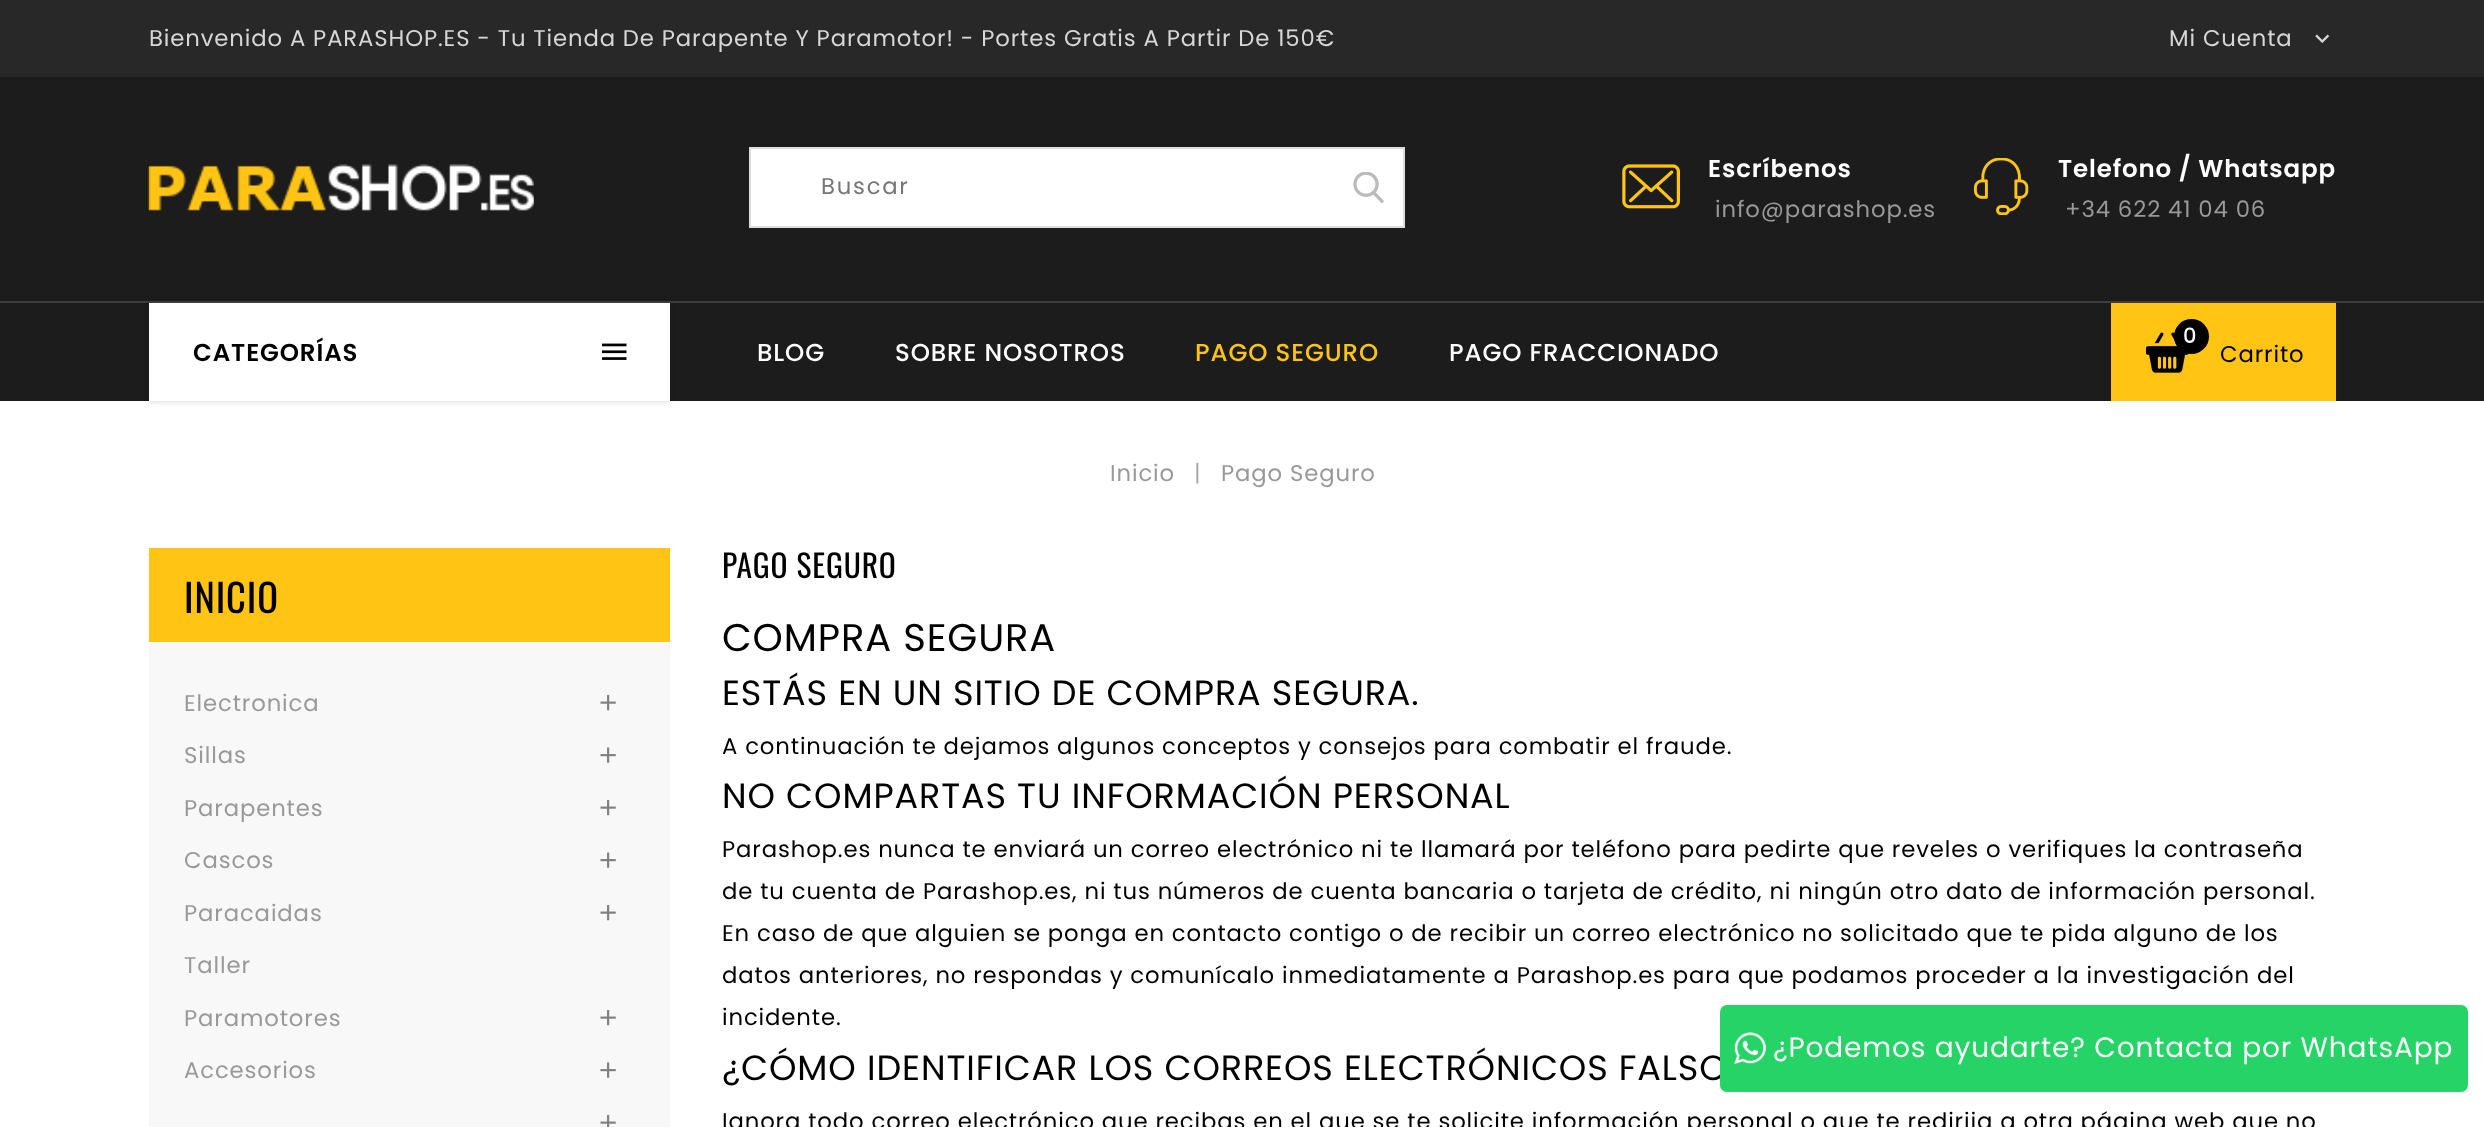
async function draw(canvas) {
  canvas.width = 2484;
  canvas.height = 1127;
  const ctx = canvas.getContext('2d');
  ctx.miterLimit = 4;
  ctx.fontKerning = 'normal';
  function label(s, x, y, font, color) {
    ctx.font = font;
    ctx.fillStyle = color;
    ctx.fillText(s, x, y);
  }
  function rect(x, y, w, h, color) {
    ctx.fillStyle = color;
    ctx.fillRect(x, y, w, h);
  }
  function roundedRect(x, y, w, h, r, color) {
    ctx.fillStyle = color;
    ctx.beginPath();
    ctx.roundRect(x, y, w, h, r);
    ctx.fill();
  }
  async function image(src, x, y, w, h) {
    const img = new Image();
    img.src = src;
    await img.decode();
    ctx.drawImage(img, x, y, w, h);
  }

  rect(0, 0, 2484, 1127, '#fff');
  rect(0, 0, 2484, 77, '#282828');
  ctx.letterSpacing = '0.88px';
  label('Bienvenido A PARASHOP.ES - Tu Tienda De Parapente Y Paramotor! - Portes Gratis A Partir De 150€', 149, 46, '22.75px Poppins', '#d7d7d7');
  label('Mi Cuenta', 2169, 46, '22.75px Poppins', '#d7d7d7');
  await image('assets/img1.png', 2315, 34, 15, 9);
  rect(0, 77, 2484, 224, '#1c1c1c');
  await image('assets/img2.png', 148, 164, 386, 47);
  ctx.fillStyle = '#fff';
  ctx.beginPath();
  ctx.rect(750, 148, 654, 79);
  ctx.fill();
  ctx.strokeStyle = '#ddd';
  ctx.lineWidth = 2;
  ctx.stroke();
  ctx.letterSpacing = '1.75px';
  label('Buscar', 821, 194, '22.75px Poppins', '#757575');
  await image('assets/img3.png', 1353, 172, 31, 31);
  await image('assets/img4.png', 1622, 164, 58, 45);
  ctx.letterSpacing = '0.88px';
  label('Escríbenos', 1708, 177, '600 24.5px Poppins', '#fff');
  label('info@parashop.es', 1715, 217, '22.75px Poppins', '#999');
  await image('assets/img5.png', 1973, 158, 56, 57);
  label('Telefono / Whatsapp', 2058, 177, '600 24.5px Poppins', '#fff');
  label('+34 622 41 04 06', 2065, 217, '22.75px Poppins', '#999');
  rect(0, 303, 2484, 98, '#1c1c1c');
  rect(0, 301, 2484, 2, '#3e3e3e');
  ctx.fillStyle = '#0000001a';
  ctx.filter = 'blur(2.5px)';
  ctx.beginPath();
  ctx.rect(149, 305, 521, 98);
  ctx.fill();
  ctx.filter = 'none';
  rect(149, 303, 521, 98, '#fff');
  await image('assets/img6.png', 602, 343, 25, 17);
  label('CATEGORÍAS', 193, 361, '600 24.5px Poppins', '#000');
  label('BLOG', 757, 361, '500 24.5px Poppins', '#fff');
  label('SOBRE NOSOTROS', 895, 361, '500 24.5px Poppins', '#fff');
  label('PAGO SEGURO', 1195, 361, '500 24.5px Poppins', '#ffc414');
  label('PAGO FRACCIONADO', 1449, 361, '500 24.5px Poppins', '#fff');
  rect(2111, 303, 225, 98, '#ffc414');
  await image('assets/img7.png', 2146, 332, 43, 41);
  ctx.fillStyle = '#000';
  ctx.beginPath();
  ctx.arc(2191.5, 336.5, 17.5, 0, 2 * Math.PI);
  ctx.fill();
  label('0', 2183, 343, '500 21px Poppins', '#fff');
  label('Carrito', 2220, 362, '22.75px Poppins', '#000');
  label('Inicio', 1110, 481, '22.75px Poppins', '#999');
  label('|', 1194, 481, '22.75px Poppins', '#aaa');
  label('Pago Seguro', 1221, 481, '22.75px Poppins', '#999');
  rect(149, 548, 521, 94, '#ffc414');
  label('INICIO', 184, 613, '38.5px Oswald', '#000');
  rect(149, 642, 521, 485, '#f8f8f8');
  label('Electronica', 184, 711, '22.75px Poppins', '#999');
  await image('assets/img8.png', 600, 695, 16, 16);
  label('Sillas', 184, 763, '22.75px Poppins', '#999');
  await image('assets/img9.png', 600, 747, 16, 16);
  label('Parapentes', 184, 816, '22.75px Poppins', '#999');
  await image('assets/img8.png', 600, 800, 16, 16);
  label('Cascos', 184, 868, '22.75px Poppins', '#999');
  await image('assets/img9.png', 600, 852, 16, 16);
  label('Paracaidas', 184, 921, '22.75px Poppins', '#999');
  await image('assets/img8.png', 600, 905, 16, 16);
  label('Taller', 184, 973, '22.75px Poppins', '#999');
  label('Paramotores', 184, 1026, '22.75px Poppins', '#999');
  await image('assets/img8.png', 600, 1010, 16, 16);
  label('Accesorios', 184, 1078, '22.75px Poppins', '#999');
  await image('assets/img9.png', 600, 1062, 16, 16);
  await image('assets/img10.png', 600, 1115, 16, 12);
  label('PAGO SEGURO', 722, 578, '31.5px Oswald', '#000');
  label('COMPRA SEGURA', 722, 651, '38.5px Poppins', '#000');
  label('ESTÁS EN UN SITIO DE COMPRA SEGURA.', 722, 705, '35px Poppins', '#000');
  label('A continuación te dejamos algunos conceptos y consejos para combatir el fraude.', 722, 754, '22.75px Poppins', '#000');
  label('NO COMPARTAS TU INFORMACIÓN PERSONAL', 722, 808, '35px Poppins', '#000');
  label('Parashop.es nunca te enviará un correo electrónico ni te llamará por teléfono para pedirte que reveles o verifiques la contraseña', 722, 857, '22.75px Poppins', '#000');
  label('de tu cuenta de Parashop.es, ni tus números de cuenta bancaria o tarjeta de crédito, ni ningún otro dato de información personal.', 722, 899, '22.75px Poppins', '#000');
  label('En caso de que alguien se ponga en contacto contigo o de recibir un correo electrónico no solicitado que te pida alguno de los', 722, 941, '22.75px Poppins', '#000');
  label('datos anteriores, no respondas y comunícalo inmediatamente a Parashop.es para que podamos proceder a la investigación del', 722, 983, '22.75px Poppins', '#000');
  label('incidente.', 722, 1025, '22.75px Poppins', '#000');
  label('¿CÓMO IDENTIFICAR LOS CORREOS ELECTRÓNICOS FALSO', 722, 1080, '35px Poppins', '#000');
  label('Ignora todo correo electrónico que recibas en el que se te solicite información personal o que te redirija a otra página web que no', 722, 1129, '22.75px Poppins', '#000');
  roundedRect(1720, 1005, 748, 87, 7, '#25d366');
  await image('assets/img11.png', 1734, 1032, 32, 32);
  label('¿Podemos ayudarte? Contacta por WhatsApp', 1773, 1057, '28px Poppins', '#fff');
}

draw(document.querySelector('canvas'));
